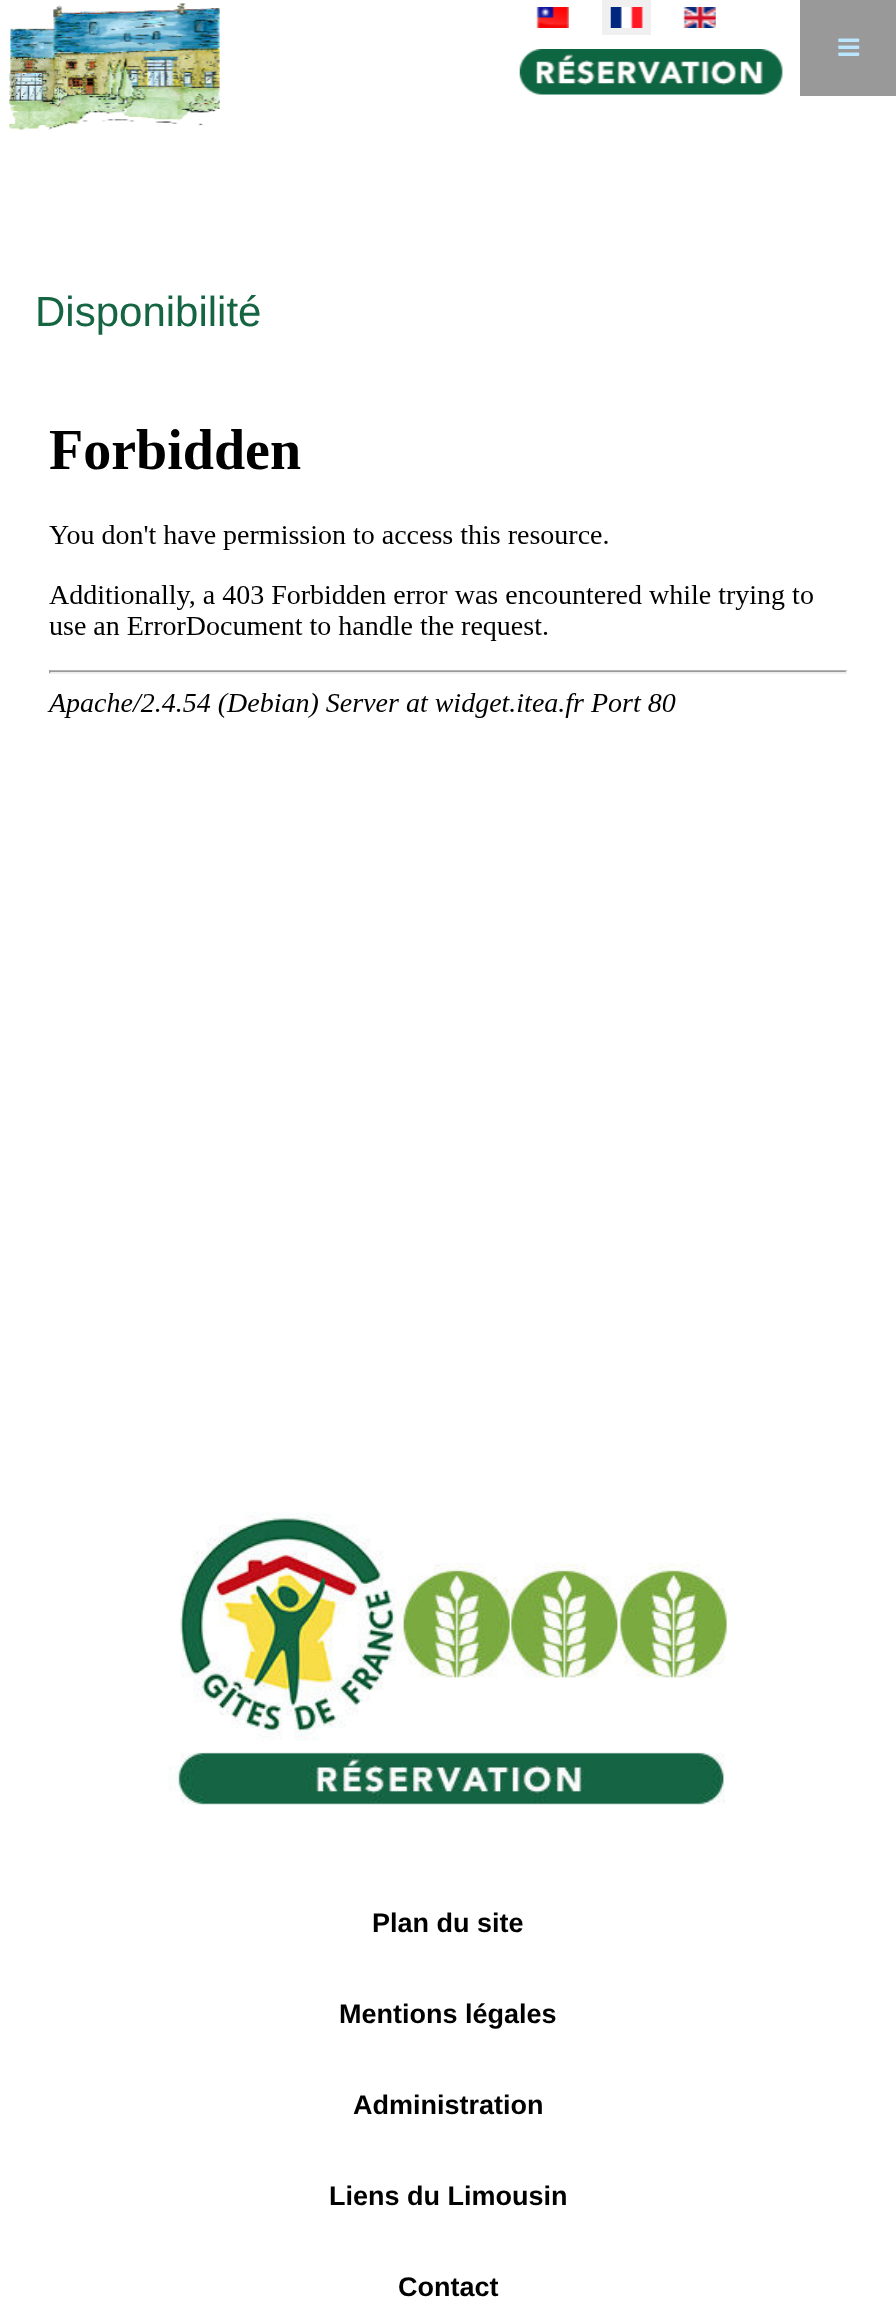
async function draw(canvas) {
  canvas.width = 896;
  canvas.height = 2317;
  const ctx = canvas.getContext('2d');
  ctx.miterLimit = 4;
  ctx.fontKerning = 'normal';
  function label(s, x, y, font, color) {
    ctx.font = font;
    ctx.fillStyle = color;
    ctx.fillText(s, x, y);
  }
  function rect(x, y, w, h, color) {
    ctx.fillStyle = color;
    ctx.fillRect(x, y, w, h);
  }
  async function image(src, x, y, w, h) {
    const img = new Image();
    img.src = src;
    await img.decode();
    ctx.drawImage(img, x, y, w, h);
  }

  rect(0, 0, 896, 2317, '#fff');
  await image('assets/img1.png', 9, 3, 211, 127);
  await image('assets/img2.png', 536, 7, 33, 21);
  rect(602, 0, 49, 35, '#f0f0f0');
  await image('assets/img3.png', 610, 7, 33, 21);
  await image('assets/img4.png', 683, 7, 33, 21);
  await image('assets/img5.png', 519, 49, 264, 46);
  rect(800, 0, 96, 96, '#999');
  await image('assets/img6.png', 838, 38, 22, 18);
  label('Disponibilité', 35, 326, '42px Liberation Sans', '#156543');
  await image('assets/img7.png', 47, 429, 800, 289);
  await image('assets/img8.png', 168, 1512, 560, 293);
  label('Plan du site', 372, 1932, 'bold 27px Liberation Sans', '#000');
  label('Mentions légales', 339, 2023, 'bold 27px Liberation Sans', '#000');
  label('Administration', 353, 2114, 'bold 27px Liberation Sans', '#000');
  label('Liens du Limousin', 329, 2205, 'bold 27px Liberation Sans', '#000');
  label('Contact', 398, 2296, 'bold 27px Liberation Sans', '#000');
}

draw(document.querySelector('canvas'));
